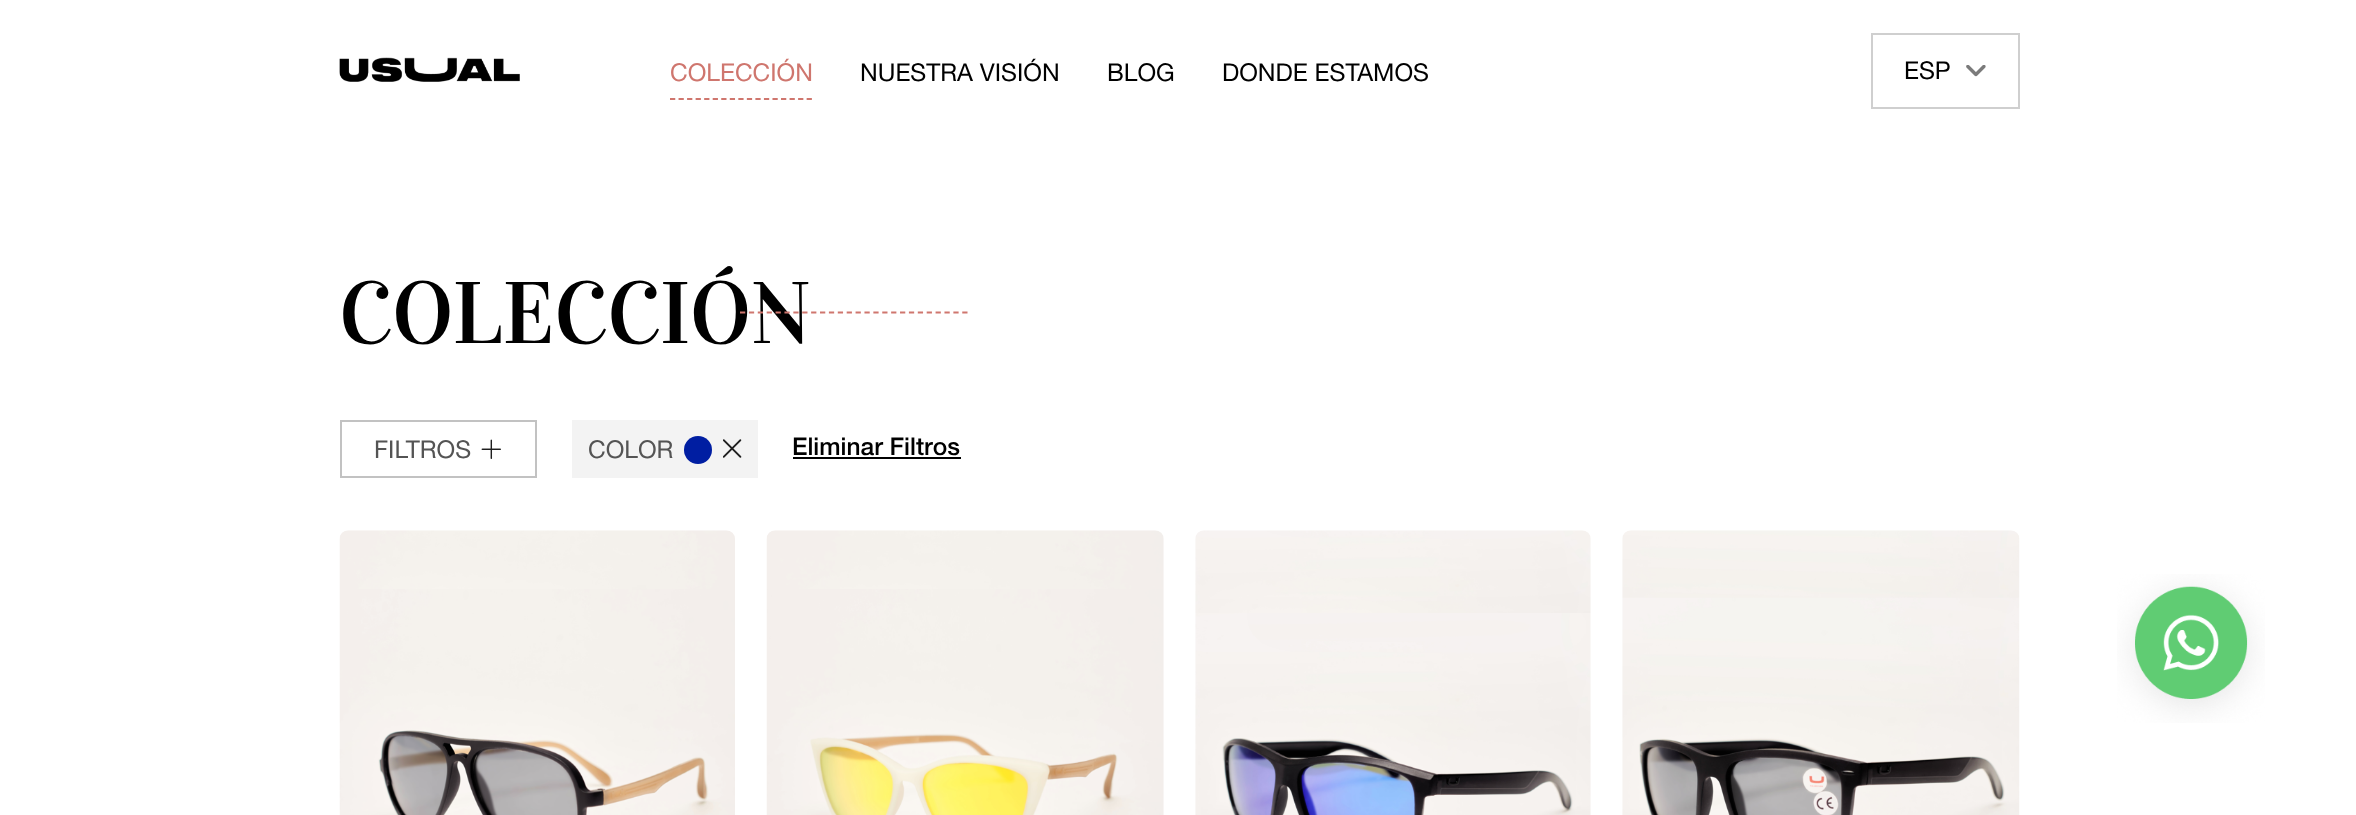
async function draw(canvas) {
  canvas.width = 2356;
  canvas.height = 815;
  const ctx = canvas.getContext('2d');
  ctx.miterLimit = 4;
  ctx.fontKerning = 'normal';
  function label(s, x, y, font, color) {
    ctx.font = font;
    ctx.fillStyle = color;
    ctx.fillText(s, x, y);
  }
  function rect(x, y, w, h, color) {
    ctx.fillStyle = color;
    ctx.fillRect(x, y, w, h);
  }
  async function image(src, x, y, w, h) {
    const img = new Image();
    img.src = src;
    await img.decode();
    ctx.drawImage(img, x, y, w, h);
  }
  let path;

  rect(0, 0, 2356, 815, '#fff');
  await image('assets/img1.png', 339, 57, 181, 25);
  label('COLECCIÓN', 670, 81, '24.5px Helvetica Neue', '#cf766e');
  path = new Path2D('M670 99H812');
  ctx.strokeStyle = '#cf766e';
  ctx.lineWidth = 1.8;
  ctx.setLineDash([5.25, 3.29]);
  ctx.stroke(path);
  label('COLECCIÓN', 339, 343, '87.5px Vidaloka', '#000');
  path = new Path2D('M740 312.5H968');
  ctx.setLineDash([5.25, 3.64]);
  ctx.stroke(path);
  label('NUESTRA VISIÓN', 860, 81, '24.5px Helvetica Neue', '#000');
  label('BLOG', 1107, 81, '24.5px Helvetica Neue', '#000');
  label('DONDE ESTAMOS', 1222, 81, '24.5px Helvetica Neue', '#000');
  ctx.strokeStyle = '#cfcfcf';
  ctx.lineWidth = 2;
  ctx.setLineDash([]);
  ctx.strokeRect(1872, 34, 147, 74);
  label('ESP', 1904, 79, '24.5px Helvetica Neue', '#000');
  await image('assets/img2.png', 1966, 65, 20, 12);
  ctx.strokeStyle = '#c2c2c2';
  ctx.strokeRect(341, 421, 195, 56);
  label('FILTROS', 374, 458, '24.5px Helvetica Neue', '#545454');
  await image('assets/img3.png', 481, 439, 20, 20);
  rect(572, 420, 186, 58, '#f3f3f3');
  label('COLOR', 588, 458, '24.5px Helvetica Neue', '#545454');
  ctx.fillStyle = '#001ea2';
  ctx.beginPath();
  ctx.arc(698, 450, 14, 0, 2 * Math.PI);
  ctx.fill();
  await image('assets/img4.png', 723, 439, 19, 19);
  label('Eliminar Filtros', 792, 455, '500 24.5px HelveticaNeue', '#000');
  rect(793, 457, 168, 2, '#000');
  await image('assets/img5.png', 339, 530, 396, 285);
  await image('assets/img6.png', 766, 530, 398, 285);
  await image('assets/img7.png', 1195, 530, 396, 285);
  await image('assets/img8.png', 1622, 530, 398, 285);
  await image('assets/img9.png', 2117, 574, 148, 149);
}

draw(document.querySelector('canvas'));
